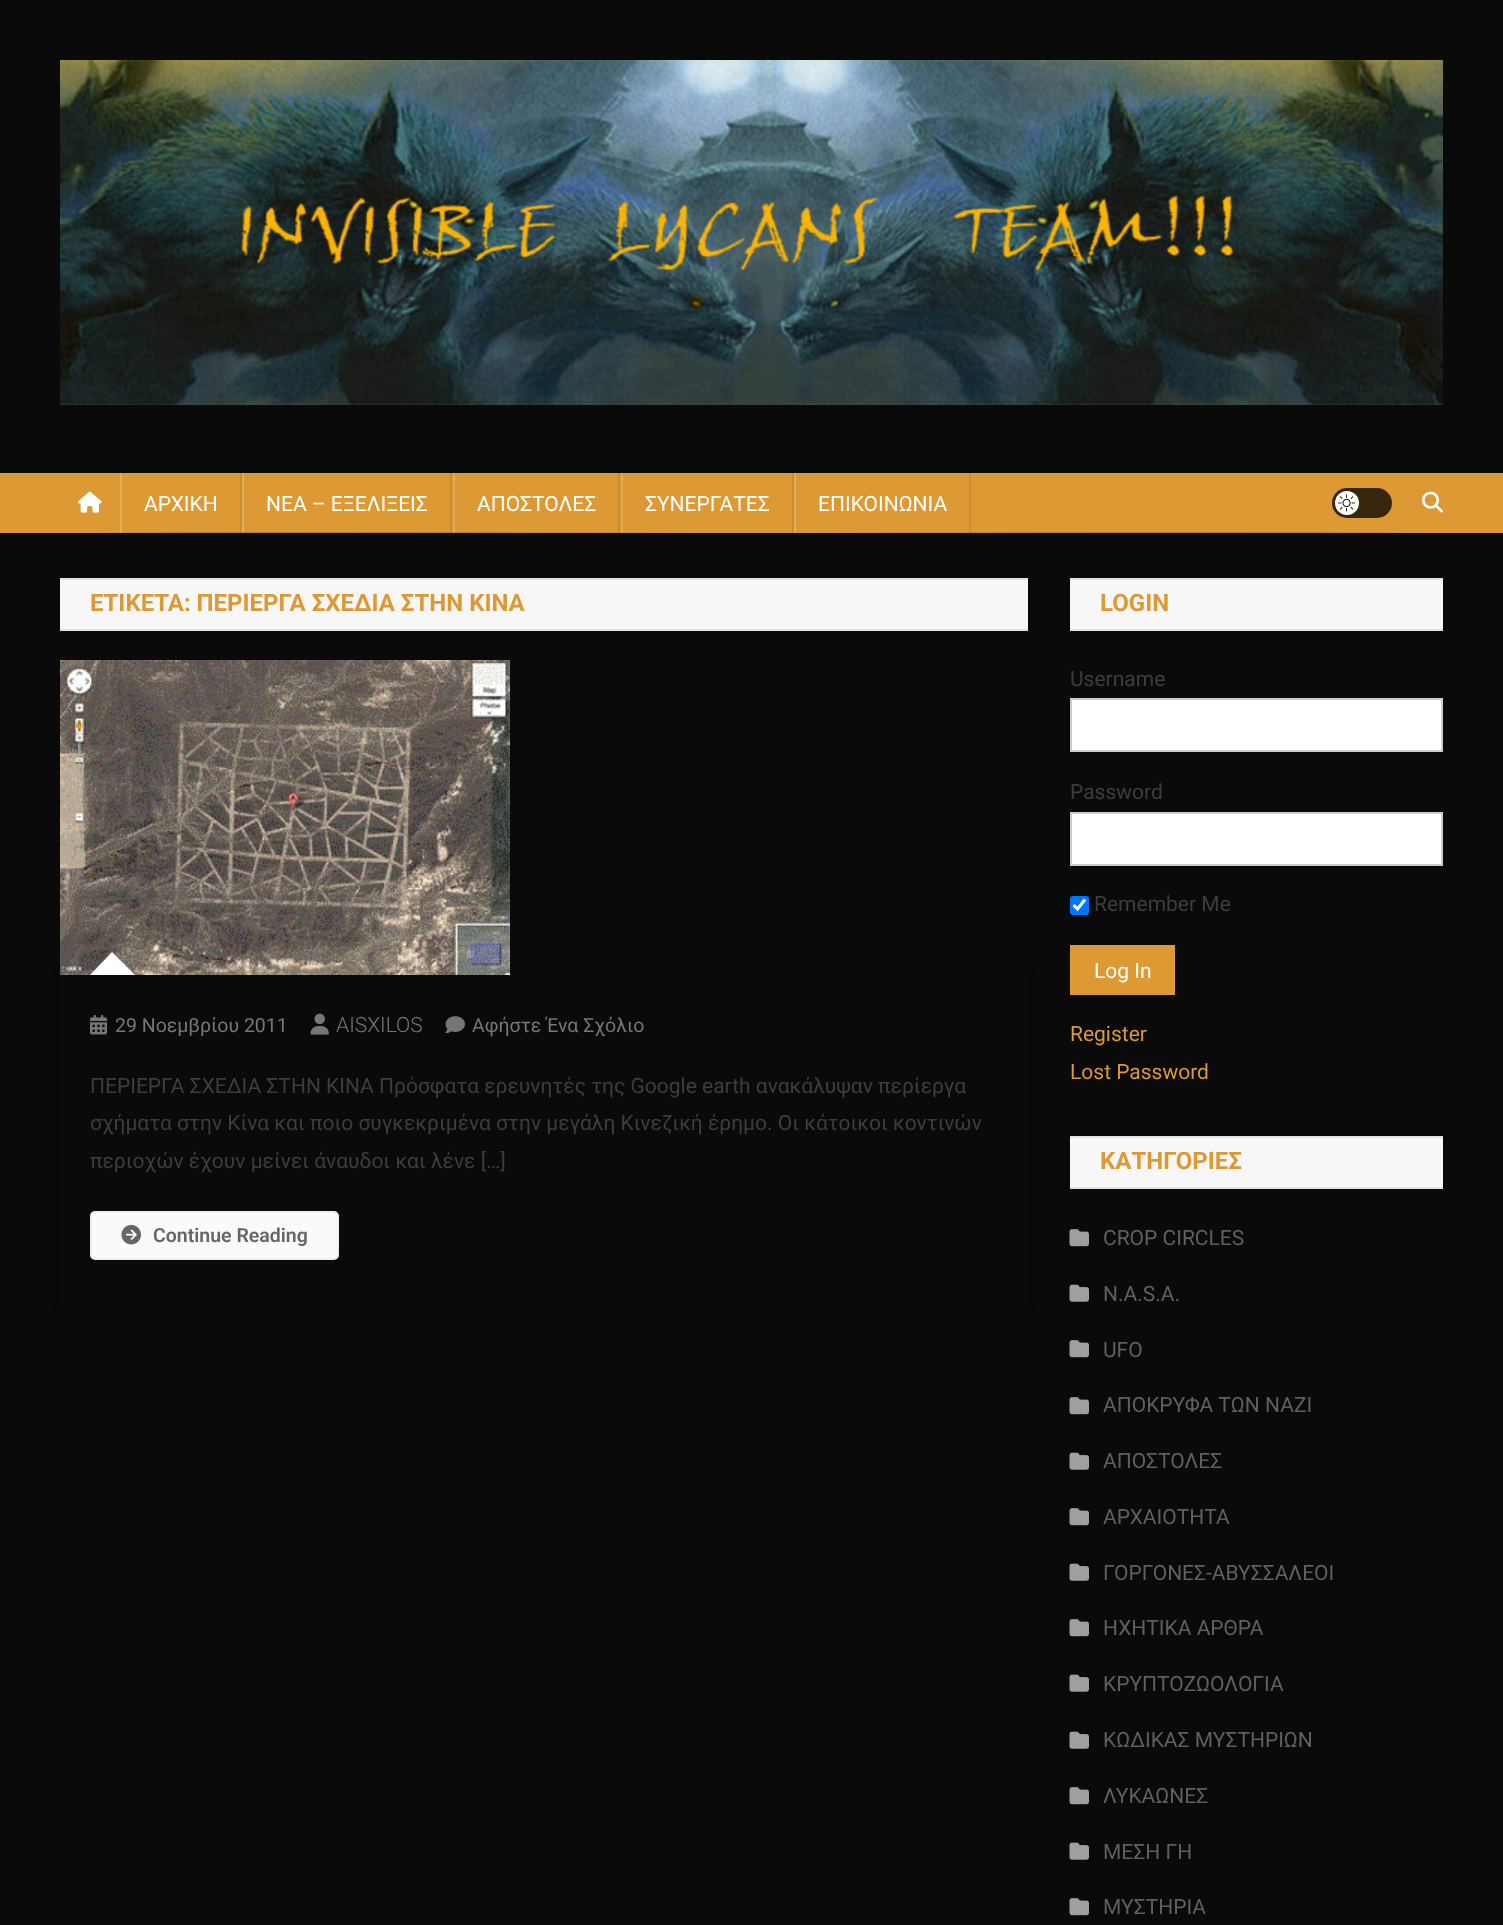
async function draw(canvas) {
  canvas.width = 1503;
  canvas.height = 1925;
  const ctx = canvas.getContext('2d');
  ctx.miterLimit = 4;
  ctx.fontKerning = 'normal';
  function label(s, x, y, font, color) {
    ctx.font = font;
    ctx.fillStyle = color;
    ctx.fillText(s, x, y);
  }
  function rect(x, y, w, h, color) {
    ctx.fillStyle = color;
    ctx.fillRect(x, y, w, h);
  }
  function roundedRect(x, y, w, h, r, color) {
    ctx.fillStyle = color;
    ctx.beginPath();
    ctx.roundRect(x, y, w, h, r);
    ctx.fill();
  }
  async function image(src, x, y, w, h) {
    const img = new Image();
    img.src = src;
    await img.decode();
    ctx.drawImage(img, x, y, w, h);
  }
  let path;

  rect(0, 0, 1503, 1925, '#0a0a0a');
  await image('assets/img1.png', 60, 60, 1383, 345);
  rect(0, 473, 1503, 60, '#d93');
  await image('assets/img2.png', 78, 491, 24, 22);
  await image('assets/img5.png', 76, 532, 1350, 1);
  rect(240, 473, 2, 60, '#00000014');
  rect(120, 473, 2, 60, '#ffffff33');
  label('ΑΡΧΙΚΗ', 144, 511, '21px Roboto', '#fff');
  rect(450, 473, 2, 60, '#00000014');
  rect(242, 473, 2, 60, '#ffffff33');
  label('ΝΕΑ – ΕΞΕΛΙΞΕΙΣ', 266, 511, '21px Roboto', '#fff');
  rect(618, 473, 2, 60, '#00000014');
  rect(453, 473, 2, 60, '#ffffff33');
  label('ΑΠΟΣΤΟΛΕΣ', 477, 511, '21px Roboto', '#fff');
  rect(792, 473, 2, 60, '#00000014');
  rect(621, 473, 2, 60, '#ffffff33');
  label('ΣΥΝΕΡΓΑΤΕΣ', 645, 511, '21px Roboto', '#fff');
  rect(969, 473, 2, 60, '#00000014');
  rect(794, 473, 2, 60, '#ffffff33');
  label('ΕΠΙΚΟΙΝΩΝΙΑ', 818, 511, '21px Roboto', '#fff');
  roundedRect(1332, 488, 60, 30, 15, '#37260d');
  ctx.fillStyle = '#fff';
  ctx.beginPath();
  ctx.arc(1347, 503, 12, 0, 2 * Math.PI);
  ctx.fill();
  await image('assets/img3.png', 1338, 494, 17, 18);
  await image('assets/img4.png', 1422, 491, 21, 22);
  rect(60, 580, 968, 49, '#f7f7f7');
  rect(60, 578, 968, 2, '#e1e1e1');
  rect(60, 629, 968, 2, '#e1e1e1');
  label('ΕΤΙΚΕΤΑ: ΠΕΡΙΕΡΓΑ ΣΧΕΔΙΑ ΣΤΗΝ ΚΙΝΑ', 90, 611, 'bold 24px Roboto', '#d93');
  await image('assets/img6.png', 60, 660, 450, 315);
  ctx.save();
  path = new Path2D('M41 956H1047V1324H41ZM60 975H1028V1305H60Z');
  ctx.clip(path, 'evenodd');
  ctx.fillStyle = '#0000001a';
  ctx.filter = 'blur(6px)';
  ctx.beginPath();
  ctx.rect(60, 975, 968, 330);
  ctx.fill();
  ctx.filter = 'none';
  ctx.restore();
  ctx.fillStyle = '#fff';
  path = new Path2D('M135 975H90L112 952Z');
  ctx.fill(path);
  await image('assets/img7.png', 90, 1015, 18, 20);
  label('29 Νοεμβρίου 2011', 115, 1032, '19.5px Roboto', '#767676');
  await image('assets/img8.png', 310, 1013, 19, 22);
  label('AISXILOS', 336, 1032, '300 21px Roboto', '#767676');
  await image('assets/img9.png', 445, 1016, 20, 18);
  label('Αφήστε Ένα Σχόλιο', 472, 1032, '19.5px Roboto', '#767676');
  label('ΠΕΡΙΕΡΓΑ ΣΧΕΔΙΑ ΣΤΗΝ ΚΙΝΑ Πρόσφατα ερευνητές της Google earth ανακάλυψαν περίεργα', 90, 1093, '21px Roboto', '#3d3d3d');
  label('σχήματα στην Κίνα και ποιο συγκεκριμένα στην μεγάλη Κινεζική έρημο. Οι κάτοικοι κοντινών', 90, 1130, '21px Roboto', '#3d3d3d');
  label('περιοχών έχουν μείνει άναυδοι και λένε […]', 90, 1168, '21px Roboto', '#3d3d3d');
  ctx.fillStyle = '#fafafa';
  ctx.beginPath();
  ctx.roundRect(91, 1212, 247, 47, 4);
  ctx.fill();
  ctx.strokeStyle = '#eee';
  ctx.lineWidth = 2;
  ctx.stroke();
  await image('assets/img10.png', 121, 1224, 20, 21);
  label('Continue Reading', 153, 1242, '600 19.5px Roboto', '#666');
  rect(1070, 580, 373, 49, '#f7f7f7');
  rect(1070, 578, 373, 2, '#e1e1e1');
  rect(1070, 629, 373, 2, '#e1e1e1');
  label('LOGIN', 1100, 611, 'bold 24px Roboto', '#d93');
  label('Username', 1070, 686, '21px Roboto', '#3d3d3d');
  ctx.fillStyle = '#fff';
  ctx.beginPath();
  ctx.rect(1071, 699, 371, 52);
  ctx.fill();
  ctx.strokeStyle = '#ccc';
  ctx.stroke();
  label('Password', 1070, 799, '21px Roboto', '#3d3d3d');
  ctx.fillStyle = '#fff';
  ctx.beginPath();
  ctx.rect(1071, 813, 371, 52);
  ctx.fill();
  ctx.stroke();
  roundedRect(1070, 896, 19, 19, 3, '#0075ff');
  path = new Path2D('M1073.5 905L1077.5 909L1085 899.5');
  ctx.strokeStyle = '#fff';
  ctx.lineWidth = 3.1;
  ctx.stroke(path);
  label('Remember Me', 1094, 911, '21px Roboto', '#3d3d3d');
  rect(1070, 945, 105, 50, '#d93');
  label('Log In', 1094, 978, '21px Roboto', '#fff');
  label('Register', 1070, 1041, '21px Roboto', '#d93');
  label('Lost Password', 1070, 1079, '21px Roboto', '#d93');
  rect(1070, 1138, 373, 49, '#f7f7f7');
  rect(1070, 1136, 373, 2, '#e1e1e1');
  rect(1070, 1187, 373, 2, '#e1e1e1');
  label('KΑΤΗΓΟΡΙΕΣ', 1100, 1169, 'bold 24px Roboto', '#d93');
  await image('assets/img11.png', 1069, 1229, 20, 18);
  label('CROP CIRCLES', 1103, 1245, '21px Roboto', '#5f5f5f');
  await image('assets/img12.png', 1069, 1284, 20, 18);
  label('N.A.S.A.', 1103, 1301, '21px Roboto', '#5f5f5f');
  await image('assets/img11.png', 1069, 1340, 20, 18);
  label('UFO', 1103, 1357, '21px Roboto', '#5f5f5f');
  await image('assets/img11.png', 1069, 1397, 20, 18);
  label('ΑΠΟΚΡΥΦΑ ΤΩΝ ΝΑΖΙ', 1103, 1412, '21px Roboto', '#5f5f5f');
  await image('assets/img12.png', 1069, 1452, 20, 18);
  label('ΑΠΟΣΤΟΛΕΣ', 1103, 1468, '21px Roboto', '#5f5f5f');
  await image('assets/img11.png', 1069, 1508, 20, 18);
  label('ΑΡΧΑΙΟΤΗΤΑ', 1103, 1524, '21px Roboto', '#5f5f5f');
  await image('assets/img12.png', 1069, 1563, 20, 18);
  label('ΓΟΡΓΟΝΕΣ-ΑΒΥΣΣΑΛΕΟΙ', 1103, 1580, '21px Roboto', '#5f5f5f');
  await image('assets/img11.png', 1069, 1619, 20, 18);
  label('ΗΧΗΤΙΚΑ ΑΡΘΡΑ', 1103, 1635, '21px Roboto', '#5f5f5f');
  await image('assets/img12.png', 1069, 1674, 20, 18);
  label('ΚΡΥΠΤΟΖΩΟΛΟΓΙΑ', 1103, 1691, '21px Roboto', '#5f5f5f');
  await image('assets/img12.png', 1069, 1731, 20, 18);
  label('ΚΩΔΙΚΑΣ ΜΥΣΤΗΡΙΩΝ', 1103, 1747, '21px Roboto', '#5f5f5f');
  await image('assets/img11.png', 1069, 1787, 20, 18);
  label('ΛΥΚΑΩΝΕΣ', 1103, 1803, '21px Roboto', '#5f5f5f');
  await image('assets/img12.png', 1069, 1842, 20, 18);
  label('ΜΕΣΗ ΓΗ', 1103, 1859, '21px Roboto', '#5f5f5f');
  await image('assets/img11.png', 1069, 1898, 20, 18);
  label('ΜΥΣΤΗΡΙΑ', 1103, 1914, '21px Roboto', '#5f5f5f');
}

draw(document.querySelector('canvas'));
